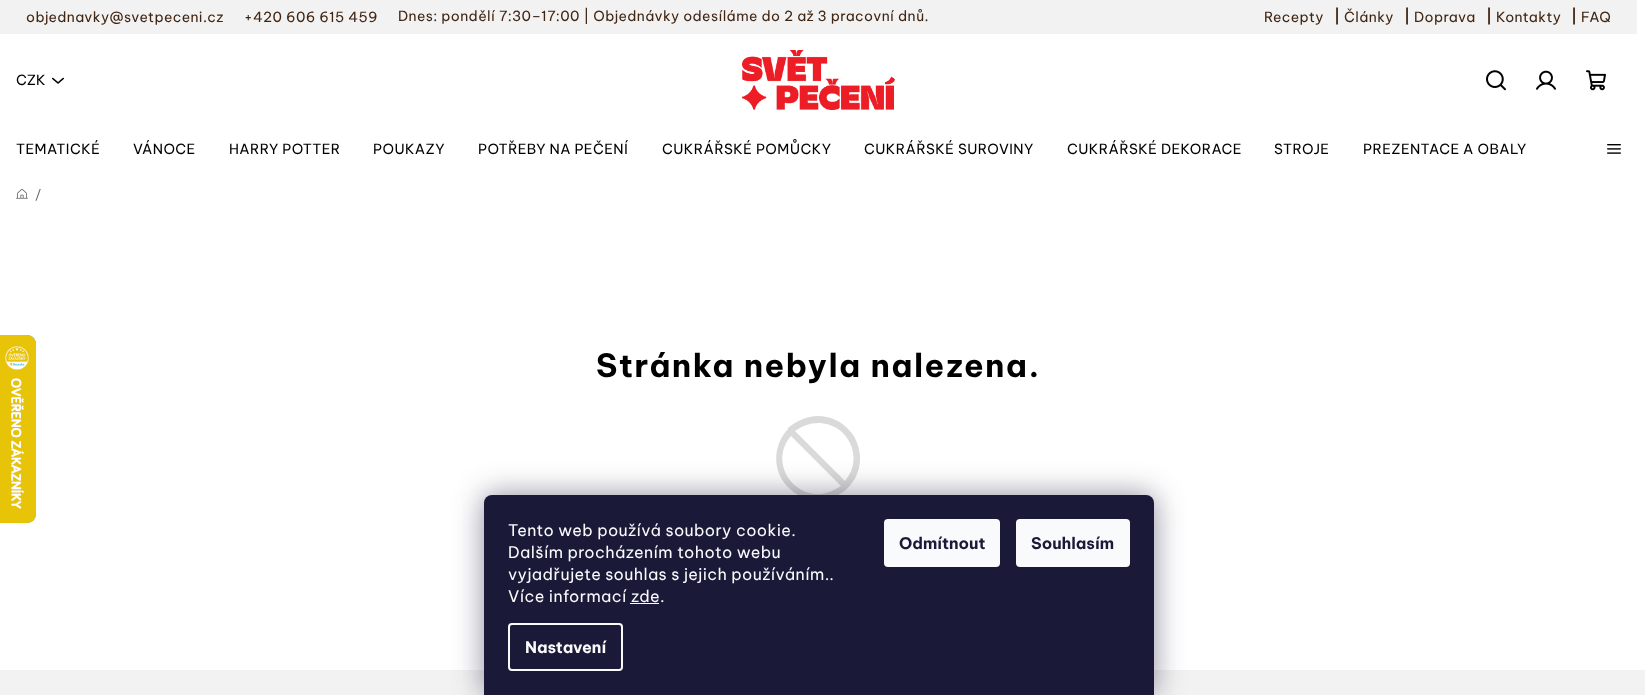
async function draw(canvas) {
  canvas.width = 1652;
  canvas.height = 695;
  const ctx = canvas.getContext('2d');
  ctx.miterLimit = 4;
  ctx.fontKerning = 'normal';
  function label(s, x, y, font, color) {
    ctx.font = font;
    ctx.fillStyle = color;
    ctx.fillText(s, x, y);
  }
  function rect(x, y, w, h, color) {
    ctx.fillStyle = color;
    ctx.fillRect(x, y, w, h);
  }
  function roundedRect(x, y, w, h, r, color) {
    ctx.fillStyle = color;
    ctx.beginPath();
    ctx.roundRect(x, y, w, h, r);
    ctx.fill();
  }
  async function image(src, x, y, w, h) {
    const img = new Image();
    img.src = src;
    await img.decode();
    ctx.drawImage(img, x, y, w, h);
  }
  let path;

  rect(0, 0, 1652, 695, '#fff');
  rect(0, 0, 1637, 34, '#f2f2f2');
  ctx.letterSpacing = '0.4px';
  label('objednavky@svetpeceni.cz', 26, 22, '14px Be Vietnam Pro', '#402512');
  label('+420 606 615 459', 244, 22, '14px Be Vietnam Pro', '#402512');
  label('Dnes: pondělí 7:30–17:00 | Objednávky odesíláme do 2 až 3 pracovní dnů.', 398, 21, '14px Be Vietnam Pro', '#402512');
  label('Recepty', 1264, 22, '14px Be Vietnam Pro', '#402512');
  label('|', 1334, 21, 'bold 14px Be Vietnam Pro', '#402512');
  label('Články', 1344, 22, '14px Be Vietnam Pro', '#402512');
  label('|', 1404, 21, 'bold 14px Be Vietnam Pro', '#402512');
  label('Doprava', 1414, 22, '14px Be Vietnam Pro', '#402512');
  label('|', 1486, 21, 'bold 14px Be Vietnam Pro', '#402512');
  label('Kontakty', 1496, 22, '14px Be Vietnam Pro', '#402512');
  label('|', 1571, 21, 'bold 14px Be Vietnam Pro', '#402512');
  label('FAQ', 1581, 22, '14px Be Vietnam Pro', '#402512');
  ctx.letterSpacing = '0px';
  label('CZK', 16, 85, '14px Be Vietnam Pro', '#000');
  await image('assets/img1.png', 52, 77, 12, 7);
  await image('assets/img2.png', 742, 50, 153, 60);
  await image('assets/img3.png', 1486, 70, 20, 21);
  await image('assets/img4.png', 1536, 70, 20, 20);
  await image('assets/img5.png', 1586, 70, 20, 21);
  ctx.letterSpacing = '0.4px';
  label('TEMATICKÉ', 16, 154, '14px Be Vietnam Pro', '#000');
  label('VÁNOCE', 133, 154, '14px Be Vietnam Pro', '#000');
  label('HARRY POTTER', 229, 154, '14px Be Vietnam Pro', '#000');
  label('POUKAZY', 373, 154, '14px Be Vietnam Pro', '#000');
  label('POTŘEBY NA PEČENÍ', 478, 154, '14px Be Vietnam Pro', '#000');
  label('CUKRÁŘSKÉ POMŮCKY', 662, 154, '14px Be Vietnam Pro', '#000');
  label('CUKRÁŘSKÉ SUROVINY', 864, 154, '14px Be Vietnam Pro', '#000');
  label('CUKRÁŘSKÉ DEKORACE', 1067, 154, '14px Be Vietnam Pro', '#000');
  label('STROJE', 1274, 154, '14px Be Vietnam Pro', '#000');
  label('PREZENTACE A OBALY', 1363, 154, '14px Be Vietnam Pro', '#000');
  await image('assets/img6.png', 1607, 144, 14, 10);
  await image('assets/img7.png', 16, 188, 12, 11);
  ctx.letterSpacing = '1px';
  label('/', 35, 199, '12px Be Vietnam Pro', '#666');
  ctx.letterSpacing = '1.6px';
  label('Stránka nebyla nalezena.', 596, 377, 'bold 32px Be Vietnam Pro', '#000');
  ctx.fillStyle = '#dadada';
  path = new Path2D('M818 416C807 416 796 421 788 428V429C772 446 772 473 790 489C818 515 862 493 860 456C859 446 856 437 849 430C841 421 830 416 818 416ZM818 423C848 423 865 458 845 481L795 431C802 426 810 423 818 423ZM791 436L841 486C835 490 828 493 821 494C790 496 770 460 791 436Z');
  ctx.fill(path);
  rect(0, 670, 1645, 25, '#f2f2f2');
  await image('assets/img8.png', 0, 335, 36, 188);
  ctx.fillStyle = '#1b193980';
  ctx.filter = 'blur(15px)';
  ctx.beginPath();
  ctx.roundRect(484, 495, 670, 200, 8);
  ctx.fill();
  ctx.filter = 'none';
  ctx.fillStyle = '#1a1937';
  ctx.beginPath();
  ctx.roundRect(484, 495, 670, 200, [8, 8, 0, 0]);
  ctx.fill();
  ctx.letterSpacing = '0.4px';
  label('Tento web používá soubory cookie.', 508, 536, '16px Be Vietnam Pro', '#f8fafb');
  label('Dalším procházením tohoto webu', 508, 558, '16px Be Vietnam Pro', '#f8fafb');
  label('vyjadřujete souhlas s jejich používáním..', 508, 580, '16px Be Vietnam Pro', '#f8fafb');
  label('Více informací zde.', 508, 602, '16px Be Vietnam Pro', '#f8fafb');
  rect(630, 603, 29, 1, '#f8fafb');
  ctx.beginPath();
  ctx.roundRect(509, 624, 113, 46, 3);
  ctx.strokeStyle = '#f8fafb';
  ctx.lineWidth = 2;
  ctx.stroke();
  ctx.letterSpacing = '0px';
  label('Nastavení', 525, 653, 'bold 16px Be Vietnam Pro', '#f8fafb');
  roundedRect(884, 519, 116, 48, 4, '#f8fafb');
  label('Odmítnout', 899, 549, 'bold 16px Be Vietnam Pro', '#1a1937');
  roundedRect(1016, 519, 114, 48, 4, '#f8fafb');
  label('Souhlasím', 1031, 549, 'bold 16px Be Vietnam Pro', '#1a1937');
}

draw(document.querySelector('canvas'));
